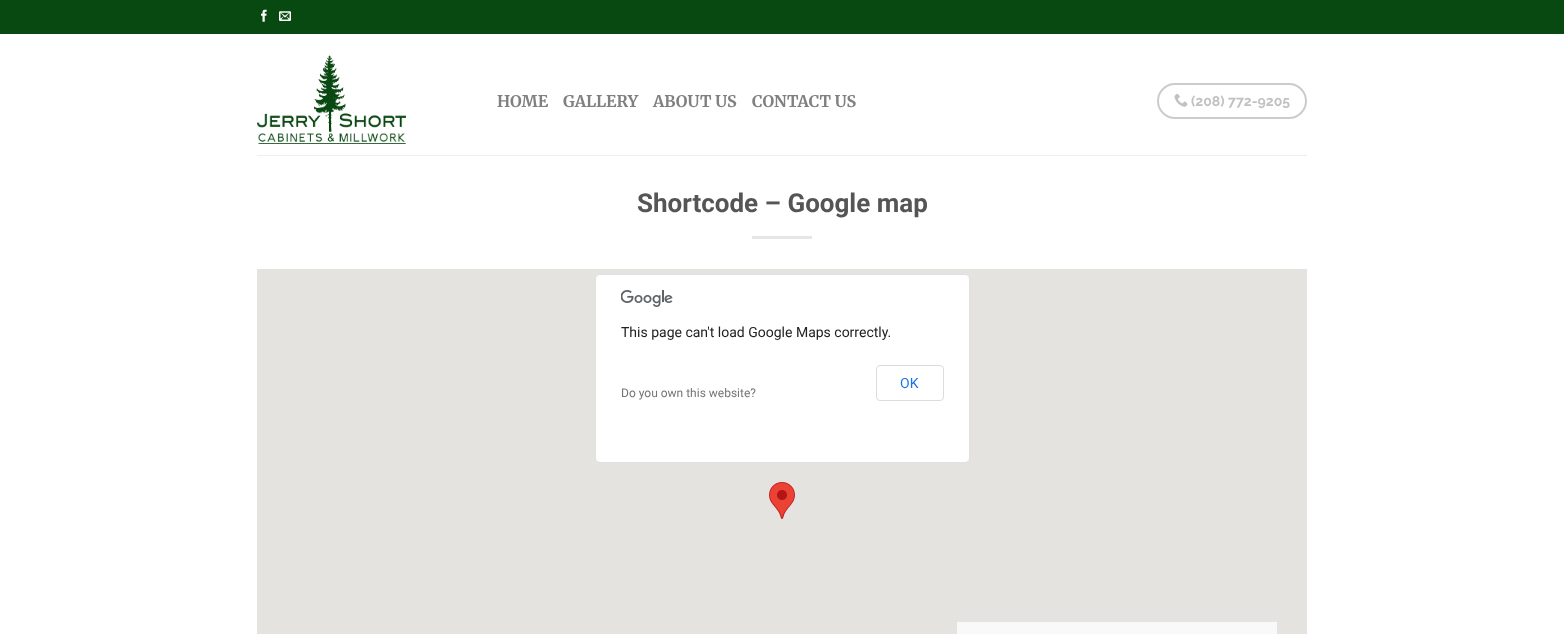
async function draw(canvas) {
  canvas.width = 1564;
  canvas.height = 634;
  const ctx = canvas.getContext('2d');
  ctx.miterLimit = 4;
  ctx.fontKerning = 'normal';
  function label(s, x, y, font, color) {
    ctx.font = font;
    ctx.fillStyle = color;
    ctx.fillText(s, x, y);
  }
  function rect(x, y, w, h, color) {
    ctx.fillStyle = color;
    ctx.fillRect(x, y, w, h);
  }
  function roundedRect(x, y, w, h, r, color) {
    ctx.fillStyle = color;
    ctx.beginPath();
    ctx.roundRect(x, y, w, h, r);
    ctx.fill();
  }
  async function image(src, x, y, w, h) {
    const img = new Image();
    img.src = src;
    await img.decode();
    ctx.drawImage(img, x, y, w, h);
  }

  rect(0, 0, 1564, 634, '#fff');
  rect(0, 0, 1564, 34, '#084911');
  await image('assets/img1.png', 261, 9, 6, 13);
  await image('assets/img2.png', 279, 11, 12, 10);
  await image('assets/img3.png', 257, 54, 149, 90);
  label('HOME', 497, 107, 'bold 16px Merriweather', '#808080');
  label('GALLERY', 563, 107, 'bold 16px Merriweather', '#808080');
  label('ABOUT US', 653, 107, 'bold 16px Merriweather', '#808080');
  label('CONTACT US', 752, 107, 'bold 16px Merriweather', '#808080');
  ctx.beginPath();
  ctx.roundRect(1158, 84, 148, 34, 17);
  ctx.strokeStyle = '#ccc';
  ctx.lineWidth = 2;
  ctx.stroke();
  await image('assets/img4.png', 1174, 93, 14, 14);
  label('(208) 772-9205', 1191, 106, 'bold 14px Raleway', '#c1c1c1');
  rect(257, 155, 1050, 1, '#eee');
  label('Shortcode – Google map', 637, 212, 'bold 26px Roboto', '#555');
  rect(752, 236, 60, 3, '#e6e6e6');
  rect(257, 269, 1050, 365, '#e5e3df');
  await image('assets/img5.png', 769, 482, 26, 37);
  roundedRect(595, 274, 375, 189, 5, '#fff');
  ctx.beginPath();
  ctx.roundRect(595.5, 274.5, 374, 188, 4.5);
  ctx.strokeStyle = '#0000001f';
  ctx.lineWidth = 1;
  ctx.stroke();
  await image('assets/img6.png', 621, 290, 52, 17);
  label('This page can\'t load Google Maps correctly.', 621, 337, '14px Roboto', '#212121');
  ctx.beginPath();
  ctx.roundRect(876.5, 365.5, 67, 35, 3.5);
  ctx.strokeStyle = '#dadce0';
  ctx.stroke();
  label('OK', 900, 388, '14px Roboto', '#1a73e8');
  label('Do you own this website?', 621, 397, '12px Roboto', '#757575');
  rect(957, 622, 320, 12, '#faf9f9');
}

draw(document.querySelector('canvas'));
